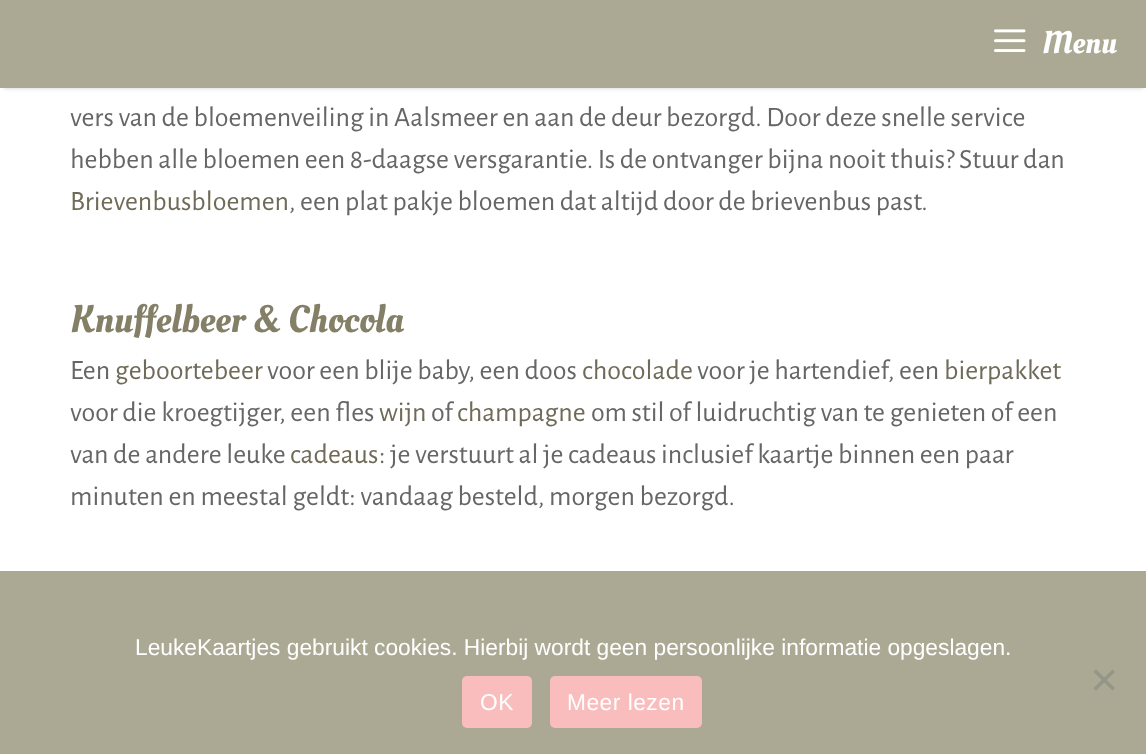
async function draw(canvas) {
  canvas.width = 1146;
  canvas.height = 754;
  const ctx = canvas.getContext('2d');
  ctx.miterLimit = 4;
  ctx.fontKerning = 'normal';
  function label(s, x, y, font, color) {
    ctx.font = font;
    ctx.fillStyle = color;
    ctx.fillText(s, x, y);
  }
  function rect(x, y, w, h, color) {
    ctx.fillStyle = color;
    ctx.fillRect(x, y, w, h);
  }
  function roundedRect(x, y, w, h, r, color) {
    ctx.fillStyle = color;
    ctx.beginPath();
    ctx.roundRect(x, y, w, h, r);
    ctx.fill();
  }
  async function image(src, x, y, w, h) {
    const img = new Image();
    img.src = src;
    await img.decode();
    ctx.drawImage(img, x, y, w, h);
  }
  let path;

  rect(0, 0, 1146, 754, '#fff');
  ctx.fillStyle = '#00000033';
  ctx.filter = 'blur(2px)';
  ctx.beginPath();
  ctx.rect(4, 7, 1139, 81);
  ctx.fill();
  ctx.filter = 'none';
  rect(0, 0, 1146, 88, '#aba994');
  await image('assets/img1.png', 994, 29, 32, 23);
  label('Menu', 1042, 53, '31.5px Oleo Script', '#fff');
  label('vers van de bloemenveiling in Aalsmeer en aan de deur bezorgd. Door deze snelle service', 70, 126, '28px Alegreya Sans', '#666');
  label('hebben alle bloemen een 8-daagse versgarantie. Is de ontvanger bijna nooit thuis? Stuur dan', 70, 168, '28px Alegreya Sans', '#666');
  label('Brievenbusbloemen', 70, 210, '28px Alegreya Sans', '#6f6b58');
  label(', een plat pakje bloemen dat altijd door de brievenbus past.', 289, 210, '28px Alegreya Sans', '#666');
  label('Knuffelbeer & Chocola', 70, 332, '38.5px Oleo Script', '#847f67');
  label('Een', 70, 379, '28px Alegreya Sans', '#666');
  label('geboortebeer', 115, 379, '28px Alegreya Sans', '#6f6b58');
  label('voor een blije baby, een doos', 267, 379, '28px Alegreya Sans', '#666');
  label('chocolade', 582, 379, '28px Alegreya Sans', '#6f6b58');
  label('voor je hartendief, een', 697, 379, '28px Alegreya Sans', '#666');
  label('bierpakket', 944, 379, '28px Alegreya Sans', '#6f6b58');
  label('voor die kroegtijger, een fles', 70, 421, '28px Alegreya Sans', '#666');
  label('wijn', 379, 421, '28px Alegreya Sans', '#6f6b58');
  label('of', 431, 421, '28px Alegreya Sans', '#666');
  label('champagne', 457, 421, '28px Alegreya Sans', '#6f6b58');
  label('om stil of luidruchtig van te genieten of een', 591, 421, '28px Alegreya Sans', '#666');
  label('van de andere leuke', 70, 463, '28px Alegreya Sans', '#666');
  label('cadeaus', 290, 463, '28px Alegreya Sans', '#6f6b58');
  label(': je verstuurt al je cadeaus inclusief kaartje binnen een paar', 379, 463, '28px Alegreya Sans', '#666');
  label('minuten en meestal geldt: vandaag besteld, morgen bezorgd.', 70, 505, '28px Alegreya Sans', '#666');
  rect(0, 571, 1146, 183, '#aba994');
  label('LeukeKaartjes gebruikt cookies. Hierbij wordt geen persoonlijke informatie opgeslagen.', 135, 655, '22.75px Liberation Sans', '#fff');
  ctx.fillStyle = '#96958a';
  path = new Path2D('M1112.5 669.5L1115 672L1096 690.5L1093.5 688Z');
  ctx.fill(path);
  path = new Path2D('M1093.5 672L1096 669.5L1115 688L1112.5 690.5Z');
  ctx.fill(path);
  roundedRect(462, 676, 70, 52, 5, '#f9bdbd');
  ctx.letterSpacing = '0.5px';
  label('OK', 480, 710, '22.75px Liberation Sans', '#fff');
  roundedRect(550, 676, 152, 52, 5, '#f9bdbd');
  label('Meer lezen', 567, 710, '22.75px Liberation Sans', '#fff');
}

draw(document.querySelector('canvas'));
